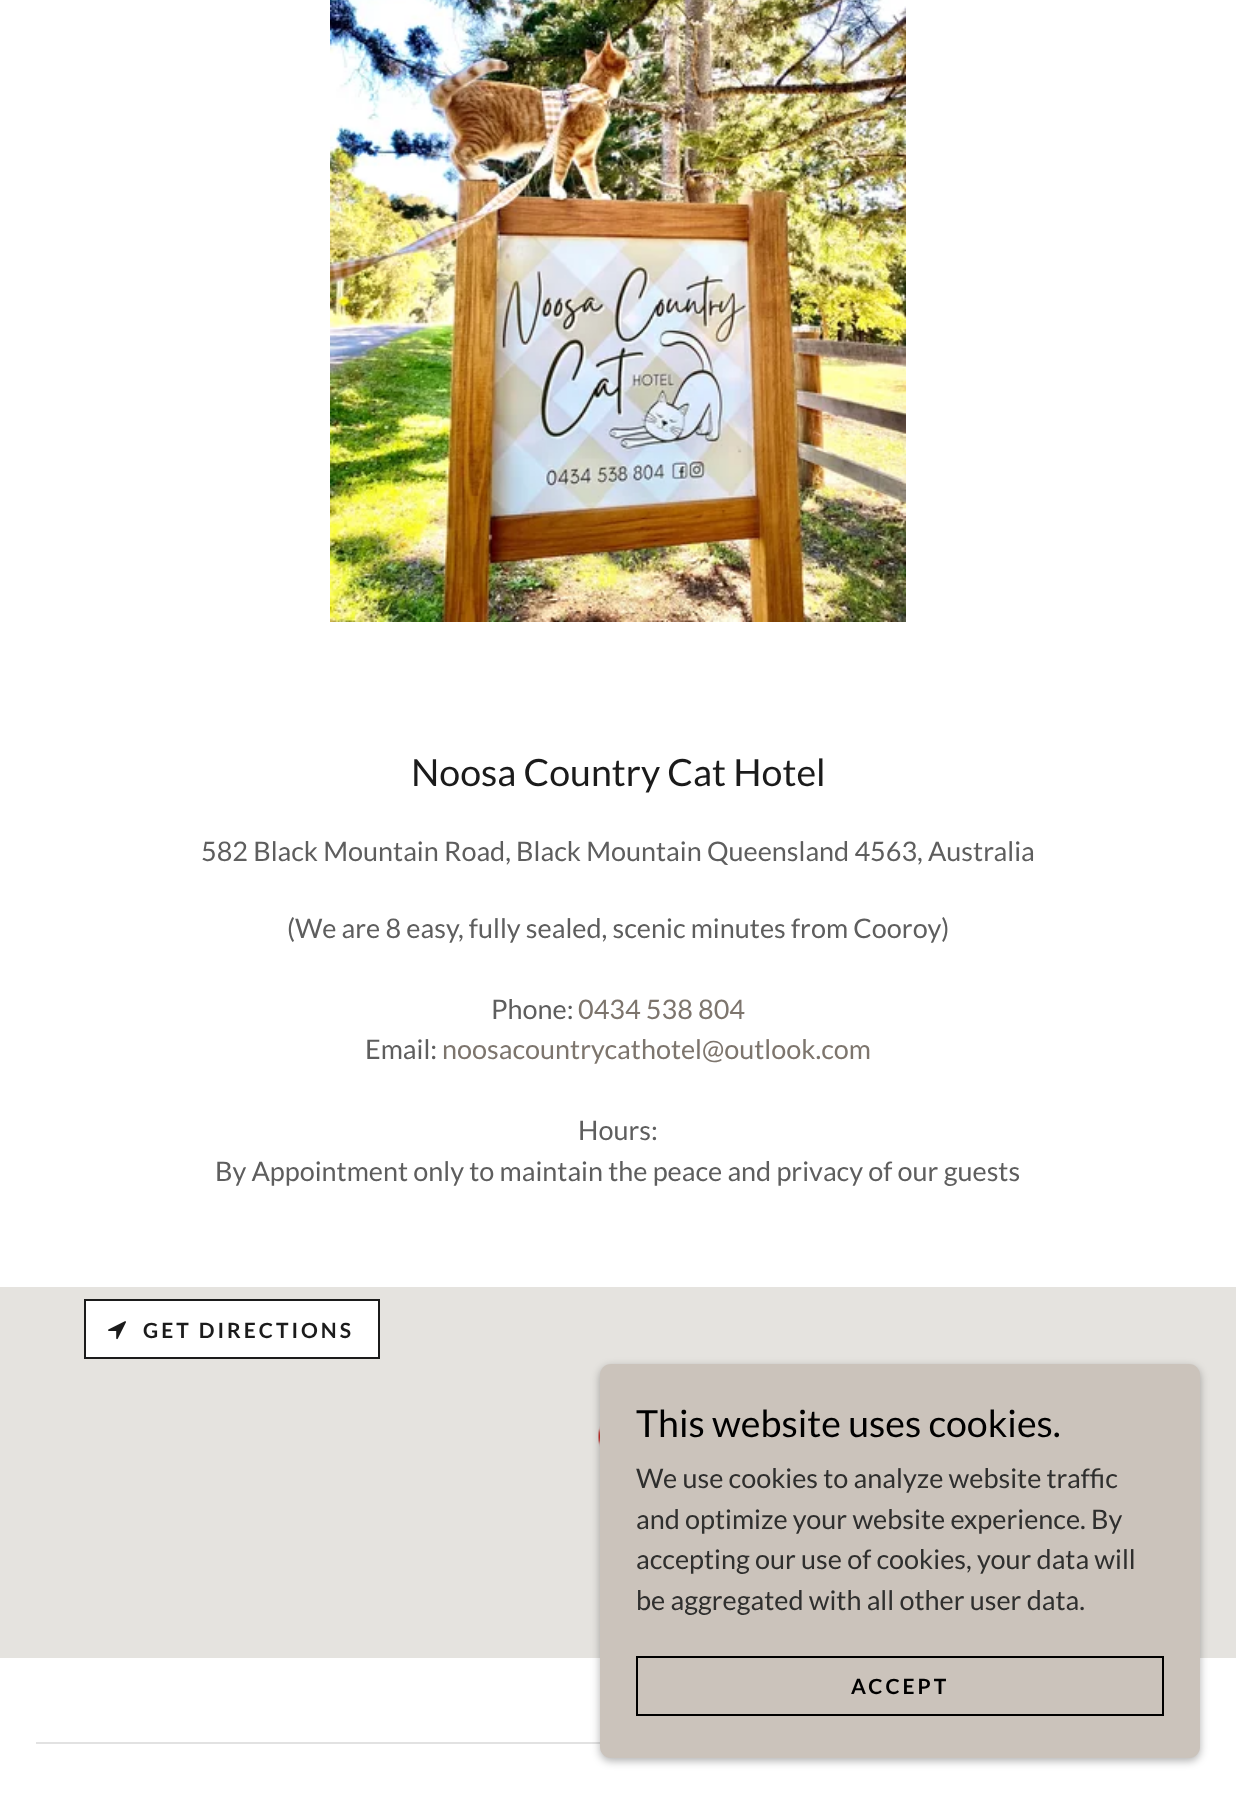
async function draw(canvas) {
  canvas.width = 1236;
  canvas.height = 1794;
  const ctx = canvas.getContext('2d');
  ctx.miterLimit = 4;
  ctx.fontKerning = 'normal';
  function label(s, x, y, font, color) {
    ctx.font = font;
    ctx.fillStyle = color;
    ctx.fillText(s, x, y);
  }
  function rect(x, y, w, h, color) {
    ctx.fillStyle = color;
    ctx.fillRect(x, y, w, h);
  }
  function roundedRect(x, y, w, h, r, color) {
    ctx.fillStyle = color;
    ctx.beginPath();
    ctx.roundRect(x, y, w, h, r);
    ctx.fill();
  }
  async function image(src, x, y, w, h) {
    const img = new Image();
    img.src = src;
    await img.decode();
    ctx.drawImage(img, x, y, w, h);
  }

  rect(0, 0, 1236, 1794, '#fff');
  await image('assets/img1.png', 330, 0, 576, 622);
  label('Noosa Country Cat Hotel', 411, 786, '37.5px Lato', '#1b1b1b');
  label('582 Black Mountain Road, Black Mountain Queensland 4563, Australia', 201, 861, '27px Lato', '#5e5e5e');
  label('(We are 8 easy, fully sealed, scenic minutes from Cooroy)', 287, 938, '27px Lato', '#5e5e5e');
  label('Phone:', 491, 1019, '27px Lato', '#5e5e5e');
  label('0434 538 804', 578, 1019, '27px Lato', '#7d756d');
  label('Email:', 365, 1059, '27px Lato', '#5e5e5e');
  label('noosacountrycathotel@outlook.com', 442, 1059, '27px Lato', '#7d756d');
  label('Hours:', 578, 1140, '27px Lato', '#5e5e5e');
  label('By Appointment only to maintain the peace and privacy of our guests', 215, 1181, '27px Lato', '#5e5e5e');
  rect(0, 1287, 1236, 371, '#e5e3df');
  await image('assets/img2.png', 598, 1426, 2, 21);
  ctx.fillStyle = '#fff';
  ctx.beginPath();
  ctx.rect(85, 1300, 294, 58);
  ctx.fill();
  ctx.strokeStyle = '#1b1b1b';
  ctx.lineWidth = 2;
  ctx.stroke();
  await image('assets/img3.png', 108, 1321, 18, 19);
  ctx.letterSpacing = '3px';
  label('GET DIRECTIONS', 143, 1338, 'bold 21px Lato', '#1b1b1b');
  rect(36, 1742, 564, 2, '#e2e2e2');
  ctx.fillStyle = '#0000004d';
  ctx.filter = 'blur(4.5px)';
  ctx.beginPath();
  ctx.roundRect(600, 1367, 600, 394, 11);
  ctx.fill();
  ctx.filter = 'none';
  roundedRect(600, 1364, 600, 394, 11, '#cbc3bb');
  ctx.letterSpacing = '0px';
  label('This website uses cookies.', 636, 1437, '37.5px Lato', '#000');
  label('We use cookies to analyze website traffic', 636, 1488, '27px Lato', '#2f2f2e');
  label('and optimize your website experience. By', 636, 1529, '27px Lato', '#2f2f2e');
  label('accepting our use of cookies, your data will', 636, 1569, '27px Lato', '#2f2f2e');
  label('be aggregated with all other user data.', 636, 1610, '27px Lato', '#2f2f2e');
  ctx.strokeStyle = '#000';
  ctx.strokeRect(637, 1657, 526, 58);
  ctx.letterSpacing = '3px';
  label('ACCEPT', 851, 1694, 'bold 21px Lato', '#000');
}

draw(document.querySelector('canvas'));
